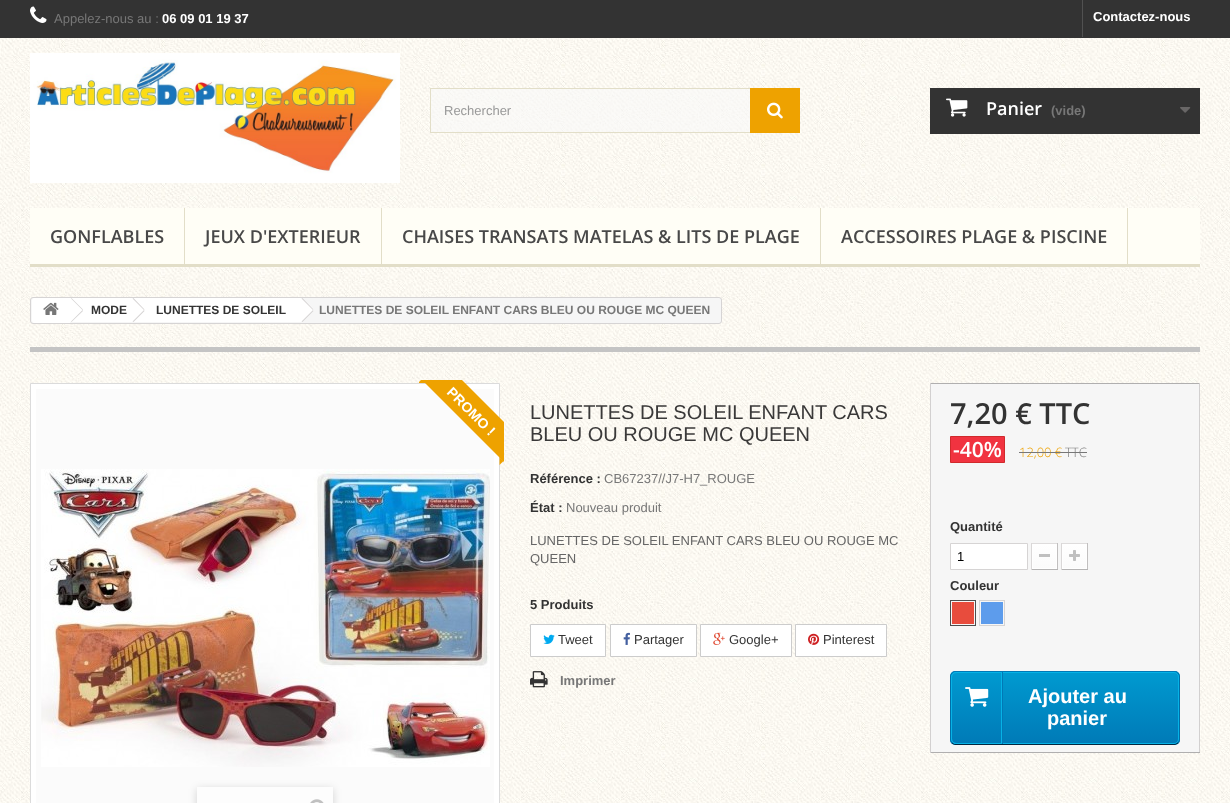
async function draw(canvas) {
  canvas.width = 1230;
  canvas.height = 803;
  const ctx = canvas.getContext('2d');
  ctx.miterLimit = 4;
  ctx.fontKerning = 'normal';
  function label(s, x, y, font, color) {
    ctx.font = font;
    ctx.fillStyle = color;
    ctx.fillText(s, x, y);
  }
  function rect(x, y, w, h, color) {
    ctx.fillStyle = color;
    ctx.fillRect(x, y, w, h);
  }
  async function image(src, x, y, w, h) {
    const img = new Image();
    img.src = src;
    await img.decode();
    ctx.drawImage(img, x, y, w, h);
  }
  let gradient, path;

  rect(0, 0, 1230, 803, '#fff');
  await image('assets/img1.png', 0, 38, 1230, 244);
  rect(0, 0, 1230, 38, '#333');
  await image('assets/img2.png', 30, 6, 17, 17);
  label('Appelez-nous au :', 54, 23, '13px Liberation Sans', '#777');
  label('06 09 01 19 37', 162, 23, 'bold 13px Liberation Sans', '#fff');
  rect(1082, 0, 1, 37, '#515151');
  label('Contactez-nous', 1093, 21, 'bold 13px Liberation Sans', '#fff');
  await image('assets/img3.png', 30, 53, 370, 130);
  rect(431, 89, 319, 43, '#f8f8f8a1');
  ctx.strokeStyle = '#e2dec8';
  ctx.strokeRect(430.5, 88.5, 369, 44);
  label('Rechercher', 444, 115, '13px Liberation Sans', '#999');
  rect(750, 88, 50, 45, '#eea200');
  await image('assets/img4.png', 767, 102, 16, 17);
  rect(930, 88, 270, 46, '#333');
  await image('assets/img5.png', 946, 98, 22, 19);
  label('Panier', 986, 115, '600 18px Open Sans', '#fff');
  label('(vide)', 1051, 115, 'bold 13px Liberation Sans', '#777');
  await image('assets/img6.png', 1180, 107, 11, 6);
  rect(30, 208, 1170, 56, '#fffef6');
  rect(30, 264, 1170, 3, '#e2dec8');
  rect(184, 208, 1, 59, '#e2dec8');
  label('GONFLABLES', 50, 243, '600 18px Open Sans', '#484848');
  rect(381, 208, 1, 59, '#e2dec8');
  label('JEUX D\'EXTERIEUR', 205, 243, '600 18px Open Sans', '#484848');
  rect(820, 208, 1, 59, '#e2dec8');
  label('CHAISES TRANSATS MATELAS & LITS DE PLAGE', 402, 243, '600 18px Open Sans', '#484848');
  rect(1127, 208, 1, 59, '#e2dec8');
  label('ACCESSOIRES PLAGE & PISCINE', 841, 243, '600 18px Open Sans', '#484848');
  await image('assets/img7.png', 0, 282, 1230, 521);
  ctx.fillStyle = '#f6f6f6';
  ctx.beginPath();
  ctx.roundRect(30.5, 297.5, 691, 26, 2.5);
  ctx.fill();
  ctx.strokeStyle = '#d6d4d4';
  ctx.stroke();
  ctx.fillStyle = '#fff';
  ctx.beginPath();
  ctx.roundRect(32, 298, 38, 25, [3, 0, 0, 3]);
  ctx.fill();
  await image('assets/img8.png', 43, 302, 16, 13);
  rect(70, 298, 64, 24, '#fff');
  ctx.fillStyle = '#d6d4d4';
  path = new Path2D('M71.5 298L83 309.5L82.5 310L71 298.5ZM82.5 310L83 311L71.5 322L71 321.5Z');
  ctx.fill(path);
  label('MODE', 91, 314, 'bold 12px Liberation Sans', '#333');
  ctx.fillStyle = '#fff';
  path = new Path2D('M144 298.5L154 308.5C155 309.5 155 310.5 154 311.5L144 321.5C143.5 322 142 322 141.5 321.5L131.5 311.5C130.5 310.5 130.5 309.5 131.5 308.5L141.5 298.5C142 298 143.5 298 144 298.5Z');
  ctx.fill(path);
  rect(134, 298, 167, 24, '#fff');
  ctx.fillStyle = '#d6d4d4';
  path = new Path2D('M133.5 298L144.5 309.5L144 310L132.5 298.5ZM144 310L144.5 311L133.5 322L132.5 321.5Z');
  ctx.fill(path);
  label('LUNETTES DE SOLEIL', 156, 314, 'bold 12px Liberation Sans', '#333');
  ctx.fillStyle = '#fff';
  path = new Path2D('M303 298.5L313 308.5C314 309.5 314 310.5 313 311.5L303 321.5C302.5 322 301 322 300.5 321.5L290.5 311.5C289.5 310.5 289.5 309.5 290.5 308.5L300.5 298.5C301 298 302.5 298 303 298.5Z');
  ctx.fill(path);
  ctx.fillStyle = '#d6d4d4';
  path = new Path2D('M302.5 298L313.5 309.5L313 310L301.5 298.5ZM313 310L313.5 311L302.5 322L301.5 321.5Z');
  ctx.fill(path);
  label('LUNETTES DE SOLEIL ENFANT CARS BLEU OU ROUGE MC QUEEN', 319, 314, 'bold 12px Liberation Sans', '#777');
  rect(30, 347, 1170, 5, '#c4c4c4');
  ctx.fillStyle = '#fff';
  ctx.beginPath();
  ctx.rect(30.5, 383.5, 469, 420);
  ctx.fill();
  ctx.strokeStyle = '#dbdbdb';
  ctx.stroke();
  rect(36, 389, 458, 414, '#fbfbfb');
  ctx.save();
  ctx.beginPath();
  ctx.rect(419, 380, 85, 85);
  ctx.clip();
  ctx.fillStyle = '#eea200';
  path = new Path2D('M436 354L528 446L508 466L416 374Z');
  ctx.fill(path);
  path = new Path2D('M426 383H418L422 379Z');
  ctx.fill(path);
  ctx.restore();
  ctx.font = 'bold 14px Liberation Sans';
  ctx.fillStyle = '#fff';
  ctx.save();
  ctx.translate(446, 393);
  ctx.rotate(45 * Math.PI / 180);
  ctx.fillText('PROMO !', 0, 0);
  ctx.restore();
  ctx.fillStyle = '#eea200';
  path = new Path2D('M499.5 465V457L503.5 461Z');
  ctx.fill(path);
  await image('assets/img9.png', 41, 469, 449, 298);
  ctx.fillStyle = '#00000029';
  ctx.filter = 'blur(4px)';
  ctx.beginPath();
  ctx.rect(197, 789, 136, 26);
  ctx.fill();
  ctx.filter = 'none';
  rect(197, 787, 136, 16, '#fdfdfd');
  await image('assets/img10.png', 310, 799, 14, 4);
  label('LUNETTES DE SOLEIL ENFANT CARS', 530, 419, '20px Liberation Sans', '#3a3939');
  label('BLEU OU ROUGE MC QUEEN', 530, 441, '20px Liberation Sans', '#3a3939');
  label('Référence :', 530, 483, 'bold 13px Liberation Sans', '#333');
  label('CB67237//J7-H7_ROUGE', 604, 483, '13px Liberation Sans', '#777');
  label('État :', 530, 512, 'bold 13px Liberation Sans', '#333');
  label('Nouveau produit', 566, 512, '13px Liberation Sans', '#777');
  label('LUNETTES DE SOLEIL ENFANT CARS BLEU OU ROUGE MC', 530, 545, '13px Liberation Sans', '#666');
  label('QUEEN', 530, 563, '13px Liberation Sans', '#666');
  label('5 Produits', 530, 609, 'bold 13px Liberation Sans', '#333');
  ctx.fillStyle = '#fff';
  ctx.beginPath();
  ctx.rect(530.5, 624.5, 75, 32);
  ctx.fill();
  ctx.strokeStyle = '#ccc';
  ctx.stroke();
  await image('assets/img11.png', 543, 634, 12, 10);
  label('Tweet', 558, 644, '13px Liberation Sans', '#333');
  ctx.fillStyle = '#fff';
  ctx.beginPath();
  ctx.rect(610.5, 624.5, 86, 32);
  ctx.fill();
  ctx.stroke();
  await image('assets/img12.png', 623, 632, 7, 13);
  label('Partager', 634, 644, '13px Liberation Sans', '#333');
  ctx.fillStyle = '#fff';
  ctx.beginPath();
  ctx.rect(700.5, 624.5, 91, 32);
  ctx.fill();
  ctx.stroke();
  await image('assets/img13.png', 713, 632, 12, 13);
  label('Google+', 729, 644, '13px Liberation Sans', '#333');
  ctx.fillStyle = '#fff';
  ctx.beginPath();
  ctx.rect(795.5, 624.5, 91, 32);
  ctx.fill();
  ctx.stroke();
  await image('assets/img14.png', 808, 633, 12, 12);
  label('Pinterest', 823, 644, '13px Liberation Sans', '#333');
  await image('assets/img15.png', 530, 671, 18, 17);
  label('Imprimer', 560, 685, 'bold 13px Liberation Sans', '#777');
  rect(931, 384, 268, 368, '#f6f6f6');
  rect(930, 383, 270, 1, '#b0afaf');
  rect(1199, 383, 1, 370, '#d2d0d0');
  rect(930, 752, 270, 1, '#b0afaf');
  rect(930, 383, 1, 370, '#d2d0d0');
  label('7,20 € TTC', 950, 424, '600 29px Open Sans', '#333');
  ctx.fillStyle = '#f13340';
  ctx.beginPath();
  ctx.rect(950.5, 436.5, 54, 26);
  ctx.fill();
  ctx.strokeStyle = '#d02a2c';
  ctx.stroke();
  label('-40%', 953, 457, '600 21px Open Sans', '#fff');
  label('12,00 €', 1019, 457, '300 13px Open Sans', '#eea200');
  rect(1019, 452, 43, 1, '#777');
  label('TTC', 1065, 457, '300 13px Open Sans', '#777');
  rect(1062, 452, 25, 1, '#777');
  label('Quantité', 950, 531, 'bold 13px Liberation Sans', '#333');
  ctx.fillStyle = '#fff';
  ctx.beginPath();
  ctx.rect(950.5, 543.5, 77, 26);
  ctx.fill();
  ctx.strokeStyle = '#d6d4d4';
  ctx.stroke();
  label('1', 957, 561, '13px Liberation Sans', '#000');
  rect(1031, 543, 27, 1, '#dedcdc');
  rect(1057, 543, 1, 27, '#c1bfbf');
  rect(1031, 569, 27, 1, '#b5b4b4');
  rect(1031, 543, 1, 27, '#dad8d8');
  gradient = ctx.createLinearGradient(1045, 545, 1045, 568);
  gradient.addColorStop(0, '#fff');
  gradient.addColorStop(1, '#fbfbfb');
  ctx.fillStyle = gradient;
  ctx.fillRect(1033, 545, 23, 23);
  ctx.strokeStyle = '#fff';
  ctx.strokeRect(1032.5, 544.5, 24, 24);
  rect(1039, 554, 11, 3, '#c0c0c0');
  rect(1061, 543, 27, 1, '#dedcdc');
  rect(1087, 543, 1, 27, '#c1bfbf');
  rect(1061, 569, 27, 1, '#b5b4b4');
  rect(1061, 543, 1, 27, '#dad8d8');
  gradient = ctx.createLinearGradient(1075, 545, 1075, 568);
  gradient.addColorStop(0, '#fff');
  gradient.addColorStop(1, '#fbfbfb');
  ctx.fillStyle = gradient;
  ctx.fillRect(1063, 545, 23, 23);
  ctx.strokeRect(1062.5, 544.5, 24, 24);
  await image('assets/img16.png', 1069, 550, 11, 11);
  label('Couleur', 950, 590, 'bold 13px Liberation Sans', '#333');
  ctx.strokeStyle = '#4d4d4d';
  ctx.strokeRect(950.5, 600.5, 25, 25);
  rect(952, 602, 22, 22, '#e84c3d');
  ctx.strokeStyle = '#d6d4d4';
  ctx.strokeRect(979.5, 600.5, 25, 25);
  rect(981, 602, 22, 22, '#5d9cec');
  ctx.save();
  ctx.beginPath();
  ctx.roundRect(950, 671, 230, 74, 5);
  ctx.clip();
  gradient = ctx.createLinearGradient(1065, 600, 1065, 672);
  gradient.addColorStop(0, '#009ad0');
  gradient.addColorStop(1, '#007ab7');
  ctx.fillStyle = gradient;
  ctx.fillRect(950, 671, 230, 1);
  gradient = ctx.createLinearGradient(1065, 672, 1065, 744);
  gradient.addColorStop(0, '#009ad0');
  gradient.addColorStop(1, '#007ab7');
  ctx.fillStyle = gradient;
  ctx.fillRect(950, 672, 230, 72);
  gradient = ctx.createLinearGradient(1065, 744, 1065, 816);
  gradient.addColorStop(0, '#009ad0');
  gradient.addColorStop(1, '#007ab7');
  ctx.fillStyle = gradient;
  ctx.fillRect(950, 744, 230, 1);
  ctx.restore();
  path = new Path2D('M952 673L955 671.5H1175.5L1178 673');
  ctx.strokeStyle = '#0079b6';
  ctx.stroke(path);
  path = new Path2D('M1178 673L1179.5 675.5V740.5L1178 743');
  ctx.strokeStyle = '#006fa8';
  ctx.stroke(path);
  path = new Path2D('M1178 743L1175 744.5H954.5L952 743');
  ctx.strokeStyle = '#012740';
  ctx.stroke(path);
  path = new Path2D('M952 743L950.5 740.5V675.5L952 673');
  ctx.strokeStyle = '#006fa8';
  ctx.stroke(path);
  ctx.beginPath();
  ctx.roundRect(951.5, 672.5, 227, 71, 4.5);
  ctx.strokeStyle = '#06b2e6';
  ctx.stroke();
  ctx.beginPath();
  ctx.roundRect(951.5, 672.5, 50, 71, [4.5, 0, 0, 4.5]);
  ctx.stroke();
  await image('assets/img17.png', 965, 687, 24, 20);
  rect(1002, 672, 1, 72, '#0079b6');
  label('Ajouter au', 1028, 703, 'bold 20px Liberation Sans', '#fff');
  label('panier', 1047, 725, 'bold 20px Liberation Sans', '#fff');
}

draw(document.querySelector('canvas'));
